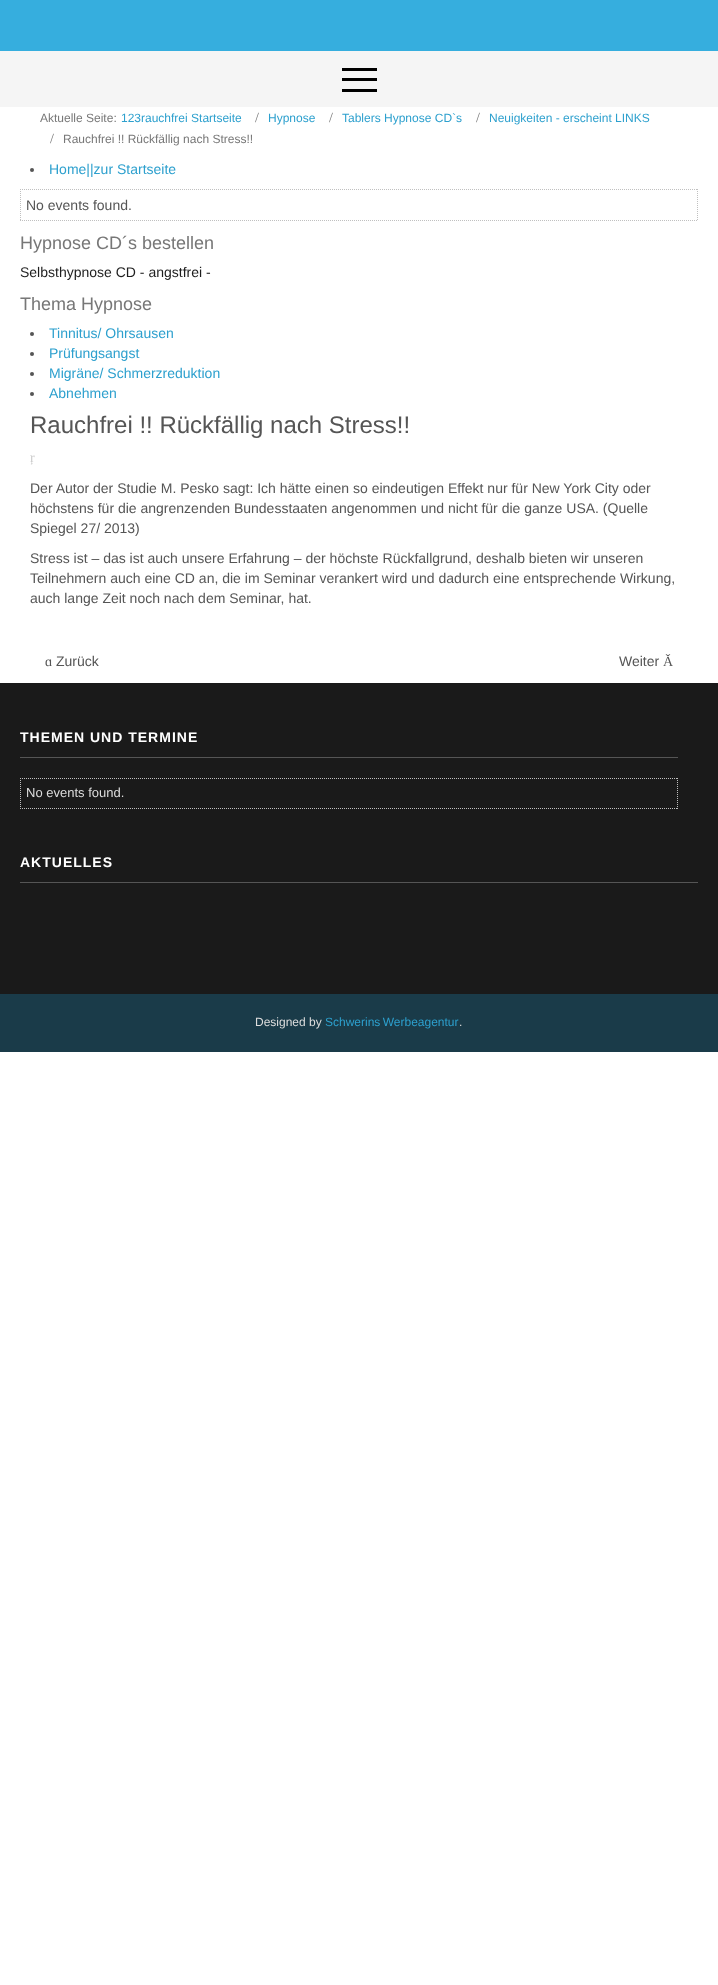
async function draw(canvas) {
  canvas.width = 718;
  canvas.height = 1985;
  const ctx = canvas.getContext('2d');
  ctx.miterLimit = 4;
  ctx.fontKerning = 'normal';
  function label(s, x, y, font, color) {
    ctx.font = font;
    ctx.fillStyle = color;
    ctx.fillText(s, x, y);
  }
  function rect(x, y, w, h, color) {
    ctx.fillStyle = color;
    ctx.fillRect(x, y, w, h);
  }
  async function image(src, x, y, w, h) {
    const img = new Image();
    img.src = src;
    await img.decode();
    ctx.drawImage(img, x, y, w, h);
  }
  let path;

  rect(0, 0, 718, 1985, '#fff');
  rect(0, 0, 718, 51, '#36aede');
  rect(0, 51, 718, 56, '#f5f5f5');
  await image('assets/img1.png', 342, 68, 35, 24);
  label('Aktuelle Seite:', 40, 122, '12px Liberation Sans', '#777');
  label('123rauchfrei Startseite', 121, 122, '12px Liberation Sans', '#2da0ce');
  label('/', 255, 122, '14px Liberation Serif', '#777');
  label('Hypnose', 268, 122, '12px Liberation Sans', '#2da0ce');
  label('/', 329, 122, '14px Liberation Serif', '#777');
  label('Tablers Hypnose CD`s', 342, 122, '12px Liberation Sans', '#2da0ce');
  label('/', 476, 122, '14px Liberation Serif', '#777');
  label('Neuigkeiten - erscheint LINKS', 489, 122, '12px Liberation Sans', '#2da0ce');
  label('/', 50, 143, '14px Liberation Serif', '#777');
  label('Rauchfrei !! Rückfällig nach Stress!!', 63, 143, '12px Liberation Sans', '#777');
  ctx.fillStyle = '#555';
  ctx.beginPath();
  ctx.arc(32, 170, 2, 0, 2 * Math.PI);
  ctx.fill();
  label('Home||zur Startseite', 49, 174, '14px Liberation Sans', '#2da0ce');
  path = new Path2D('M20 189.5H698');
  ctx.strokeStyle = '#c0c0c0';
  ctx.setLineDash([1, 1]);
  ctx.stroke(path);
  path = new Path2D('M697.5 189V221');
  ctx.stroke(path);
  path = new Path2D('M20 220.5H698');
  ctx.stroke(path);
  path = new Path2D('M20.5 189V221');
  ctx.stroke(path);
  label('No events found.', 26, 210, '14px Liberation Sans', '#555');
  label('Hypnose CD´s bestellen', 20, 249, '18px Liberation Sans', '#777');
  label('Selbsthypnose CD - angstfrei -', 20, 277, '14px Liberation Sans', '#1e1e1e');
  label('Thema Hypnose', 20, 310, '18px Liberation Sans', '#777');
  ctx.fillStyle = '#555';
  ctx.beginPath();
  ctx.arc(32, 334, 2, 0, 2 * Math.PI);
  ctx.fill();
  label('Tinnitus/ Ohrsausen', 49, 338, '14px Liberation Sans', '#2da0ce');
  ctx.fillStyle = '#555';
  ctx.beginPath();
  ctx.arc(32, 354, 2, 0, 2 * Math.PI);
  ctx.fill();
  label('Prüfungsangst', 49, 358, '14px Liberation Sans', '#2da0ce');
  ctx.fillStyle = '#555';
  ctx.beginPath();
  ctx.arc(32, 374, 2, 0, 2 * Math.PI);
  ctx.fill();
  label('Migräne/ Schmerzreduktion', 49, 378, '14px Liberation Sans', '#2da0ce');
  ctx.fillStyle = '#555';
  ctx.beginPath();
  ctx.arc(32, 394, 2, 0, 2 * Math.PI);
  ctx.fill();
  label('Abnehmen', 49, 398, '14px Liberation Sans', '#2da0ce');
  label('Rauchfrei !! Rückfällig nach Stress!!', 30, 433, '24px Liberation Sans', '#555');
  label('ŗ', 30, 462, '14px Liberation Serif', '#ccc');
  label('Der Autor der Studie M. Pesko sagt: Ich hätte einen so eindeutigen Effekt nur für New York City oder', 30, 493, '14px Liberation Sans', '#555');
  label('höchstens für die angrenzenden Bundesstaaten angenommen und nicht für die ganze USA. (Quelle', 30, 513, '14px Liberation Sans', '#555');
  label('Spiegel 27/ 2013)', 30, 533, '14px Liberation Sans', '#555');
  label('Stress ist – das ist auch unsere Erfahrung – der höchste Rückfallgrund, deshalb bieten wir unseren', 30, 563, '14px Liberation Sans', '#555');
  label('Teilnehmern auch eine CD an, die im Seminar verankert wird und dadurch eine entsprechende Wirkung,', 30, 583, '14px Liberation Sans', '#555');
  label('auch lange Zeit noch nach dem Seminar, hat.', 30, 603, '14px Liberation Sans', '#555');
  label('ɑ', 45, 666, '14px Liberation Serif', '#555');
  label('Zurück', 56, 666, '14px Liberation Sans', '#555');
  label('Weiter', 619, 666, '14px Liberation Sans', '#555');
  label('Ǎ', 663, 666, '14px Liberation Serif', '#555');
  rect(0, 683, 718, 311, '#1a1a1a');
  rect(20, 757, 658, 1, '#555');
  ctx.letterSpacing = '1px';
  label('THEMEN UND TERMINE', 20, 742, 'bold 14px Liberation Sans', '#fff');
  path = new Path2D('M20 778.5H678');
  ctx.stroke(path);
  path = new Path2D('M677.5 778V809');
  ctx.stroke(path);
  path = new Path2D('M20 808.5H678');
  ctx.stroke(path);
  path = new Path2D('M20.5 778V809');
  ctx.stroke(path);
  ctx.letterSpacing = '0px';
  label('No events found.', 26, 797, '13px Liberation Sans', '#ddd');
  rect(20, 882, 678, 1, '#555');
  ctx.letterSpacing = '1px';
  label('AKTUELLES', 20, 867, 'bold 14px Liberation Sans', '#fff');
  rect(0, 994, 718, 58, '#1a3b49');
  ctx.letterSpacing = '0px';
  label('Designed by', 255, 1026, '12px Liberation Sans', '#ddd');
  ctx.wordSpacing = '-1px';
  label('Schwerins Werbeagentur', 325, 1026, '12px Liberation Sans', '#2da0ce');
  ctx.wordSpacing = '0px';
  label('.', 459, 1026, '12px Liberation Sans', '#ddd');
}

draw(document.querySelector('canvas'));
